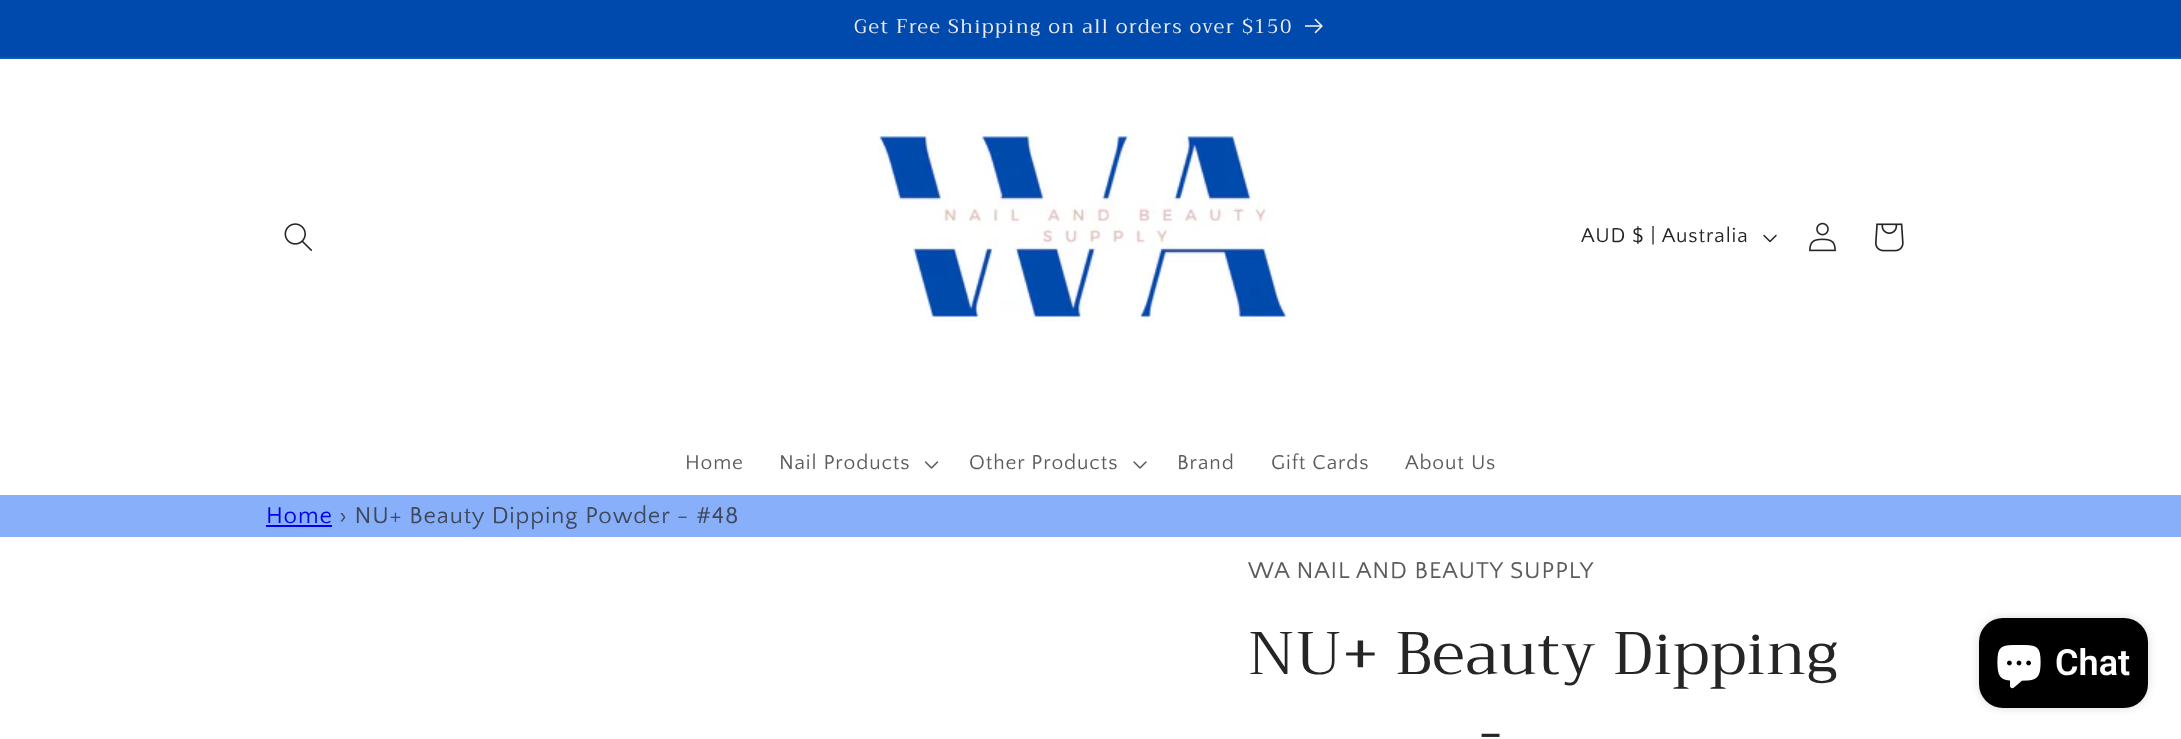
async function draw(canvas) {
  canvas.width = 2181;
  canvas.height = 739;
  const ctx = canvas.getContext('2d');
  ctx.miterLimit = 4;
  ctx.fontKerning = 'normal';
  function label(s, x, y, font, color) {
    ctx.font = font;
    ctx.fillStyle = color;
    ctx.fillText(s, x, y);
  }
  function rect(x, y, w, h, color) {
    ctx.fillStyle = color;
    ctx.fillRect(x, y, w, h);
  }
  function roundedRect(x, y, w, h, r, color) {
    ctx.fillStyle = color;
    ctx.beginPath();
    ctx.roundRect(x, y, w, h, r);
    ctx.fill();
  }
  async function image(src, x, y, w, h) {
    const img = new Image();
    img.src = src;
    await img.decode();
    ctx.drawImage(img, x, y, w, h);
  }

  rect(0, 0, 2181, 739, '#fff');
  rect(0, 0, 2181, 57, '#004aad');
  rect(0, 57, 2181, 2, '#1357b2');
  ctx.letterSpacing = '1.5px';
  label('Get Free Shipping on all orders over $150', 854, 33, '19.5px Trirong', '#efecec');
  await image('assets/img1.png', 1305, 18, 18, 16);
  await image('assets/img2.png', 284, 223, 28, 28);
  await image('assets/img3.png', 878, 130, 409, 192);
  ctx.letterSpacing = '0.9px';
  label('AUD $ | Australia', 1581, 242, '21px Quattrocento Sans', '#252525');
  await image('assets/img4.png', 1763, 234, 14, 9);
  await image('assets/img5.png', 1809, 222, 27, 30);
  await image('assets/img6.png', 1875, 223, 29, 29);
  label('Home', 685, 469, '21px Quattrocento Sans', '#5c5c5c');
  label('Nail Products', 779, 469, '21px Quattrocento Sans', '#5c5c5c');
  await image('assets/img7.png', 924, 461, 15, 8);
  label('Other Products', 969, 469, '21px Quattrocento Sans', '#5c5c5c');
  await image('assets/img8.png', 1133, 461, 14, 8);
  label('Brand', 1177, 469, '21px Quattrocento Sans', '#5c5c5c');
  label('Gift Cards', 1271, 469, '21px Quattrocento Sans', '#5c5c5c');
  label('About Us', 1405, 469, '21px Quattrocento Sans', '#5c5c5c');
  rect(0, 495, 2181, 42, '#88affa');
  label('Home', 266, 523, '24px Quattrocento Sans', '#00e');
  rect(266, 525, 66, 2, '#00e');
  label('› NU+ Beauty Dipping Powder - #48', 339, 523, '24px Quattrocento Sans', '#3e485a');
  label('WA NAIL AND BEAUTY SUPPLY', 1248, 578, '24px Quattrocento Sans', '#5c5c5c');
  label('NU+ Beauty Dipping', 1248, 674, '60px Trirong', '#252525');
  label('-', 1479, 752, '60px Trirong', '#252525');
  ctx.fillStyle = '#00000026';
  ctx.filter = 'blur(4px)';
  ctx.beginPath();
  ctx.roundRect(1979, 618, 169, 90, 24);
  ctx.fill();
  ctx.filter = 'none';
  roundedRect(1979, 618, 169, 90, 24, '#000');
  await image('assets/img9.png', 1997, 645, 44, 44);
  ctx.letterSpacing = '0px';
  label('Chat', 2055, 675, '600 36px Roboto', '#fff');
}

draw(document.querySelector('canvas'));
